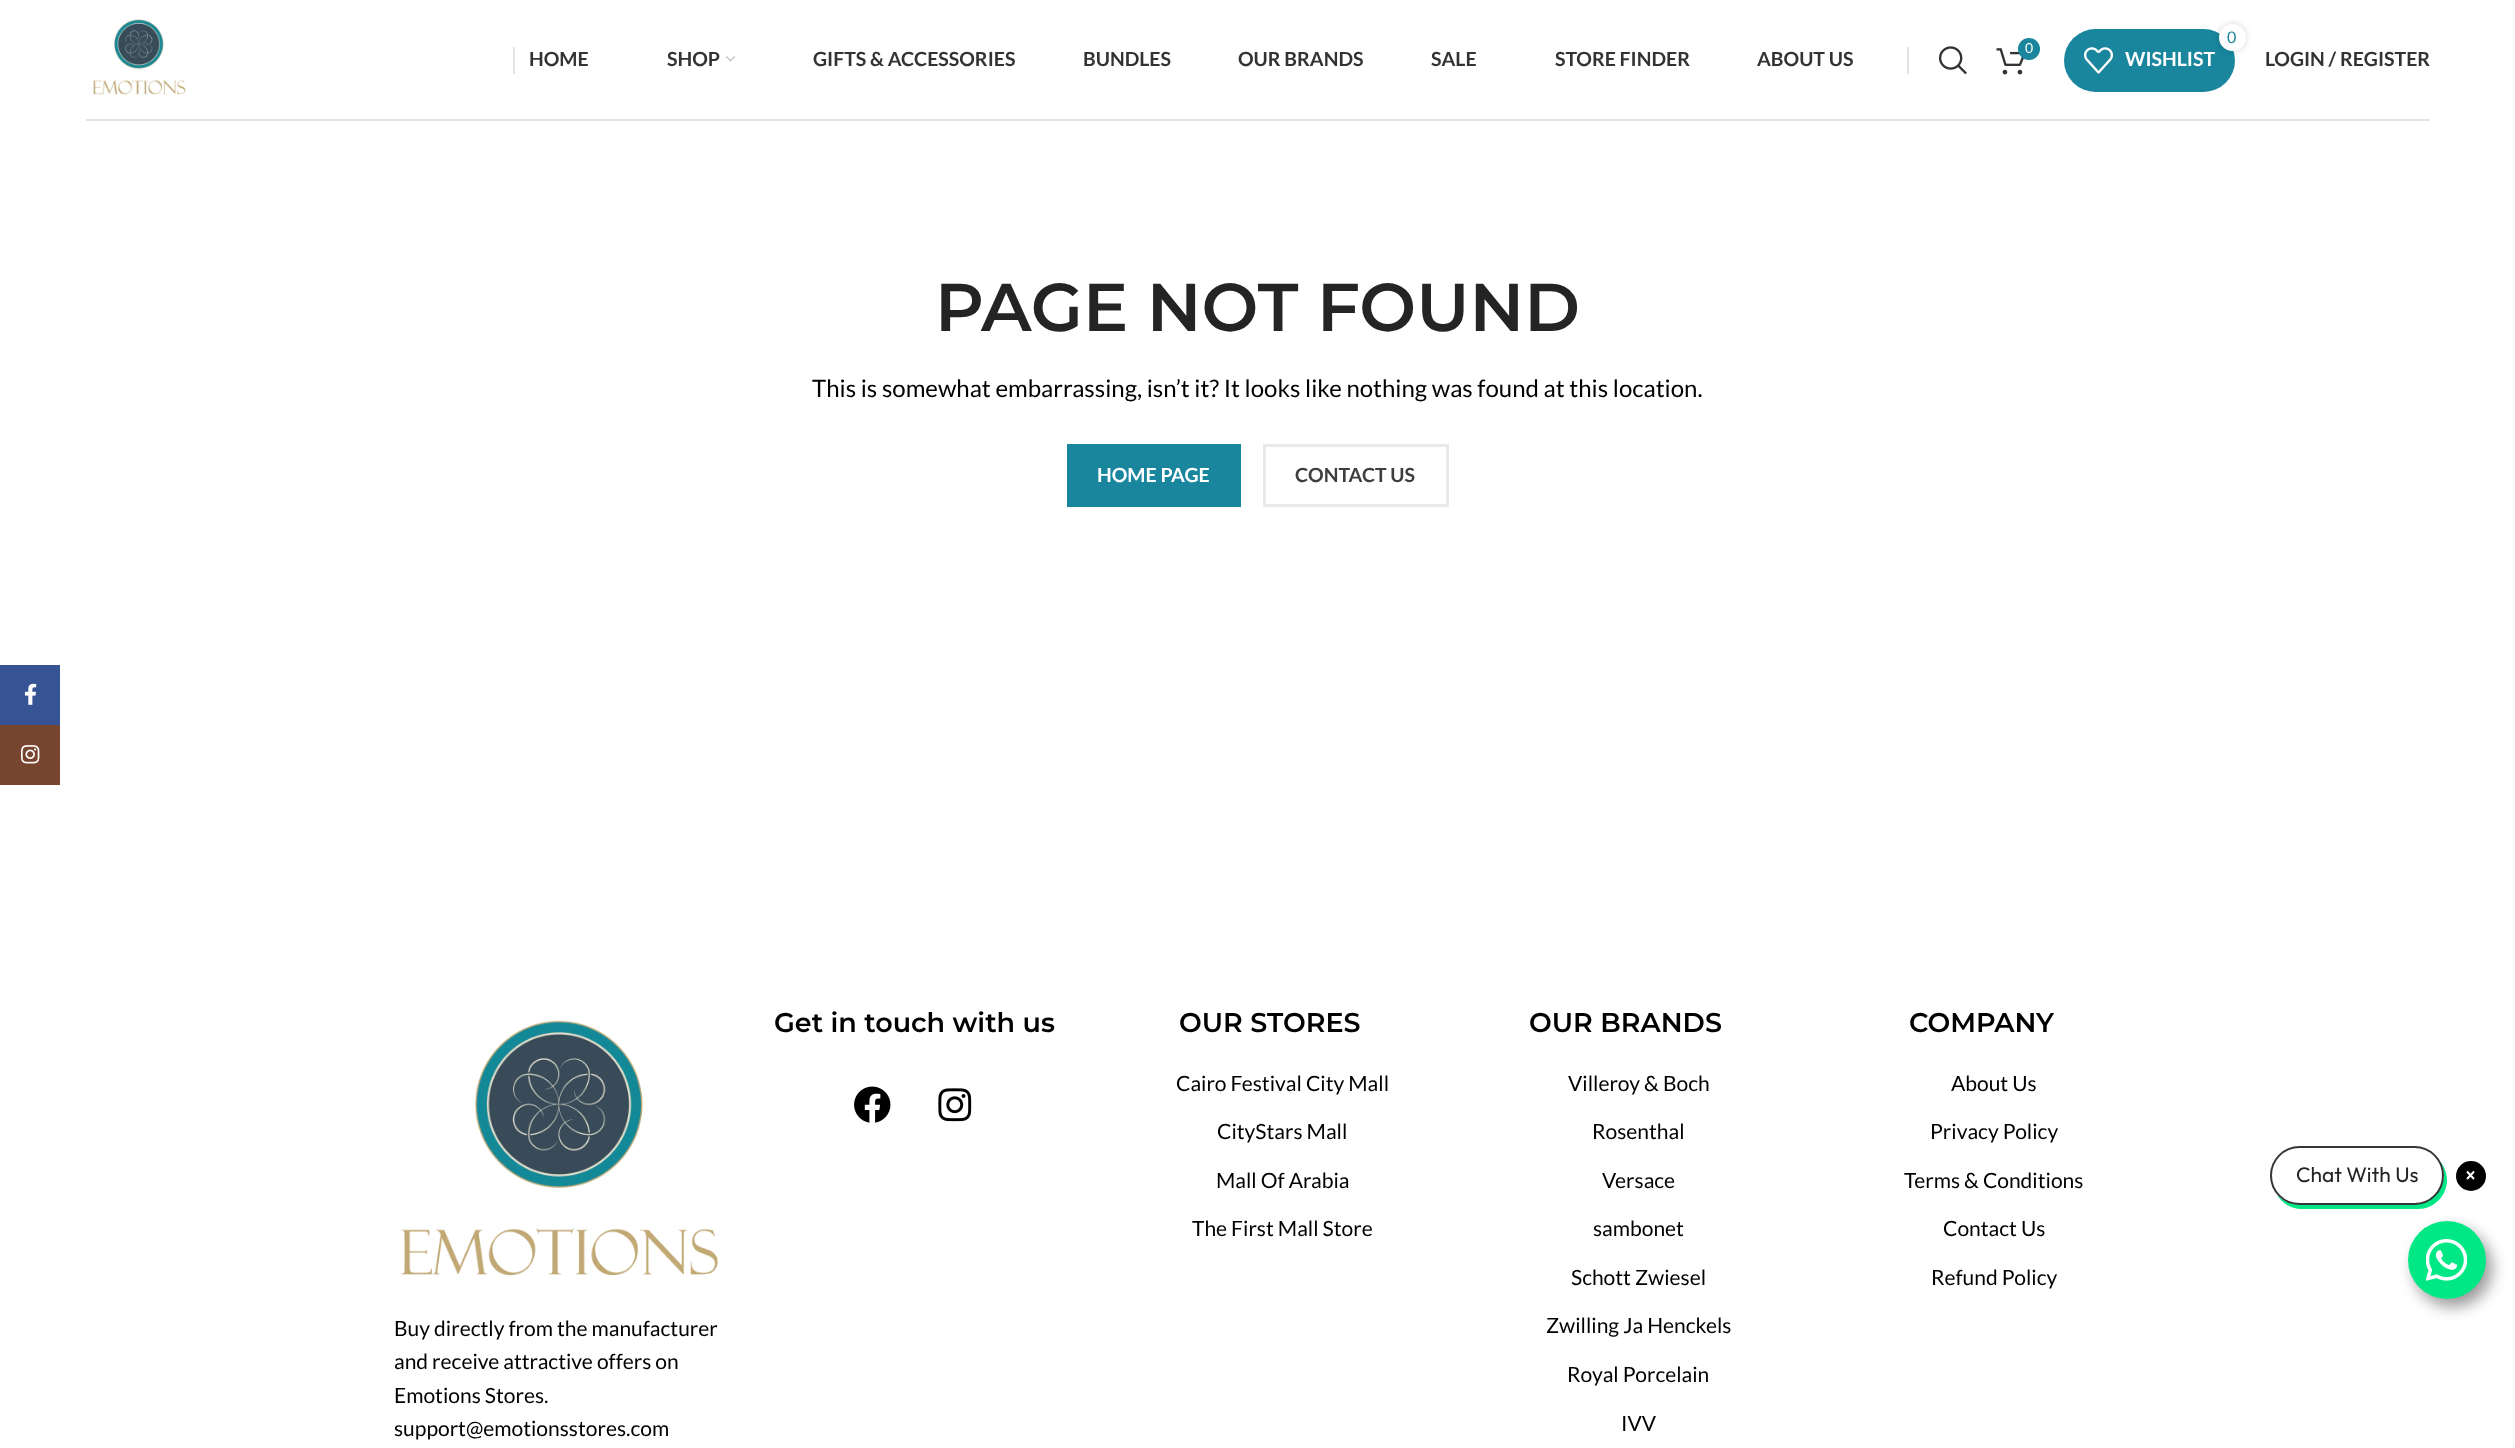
async function draw(canvas) {
  canvas.width = 2515;
  canvas.height = 1448;
  const ctx = canvas.getContext('2d');
  ctx.miterLimit = 4;
  ctx.fontKerning = 'normal';
  function label(s, x, y, font, color) {
    ctx.font = font;
    ctx.fillStyle = color;
    ctx.fillText(s, x, y);
  }
  function rect(x, y, w, h, color) {
    ctx.fillStyle = color;
    ctx.fillRect(x, y, w, h);
  }
  function roundedRect(x, y, w, h, r, color) {
    ctx.fillStyle = color;
    ctx.beginPath();
    ctx.roundRect(x, y, w, h, r);
    ctx.fill();
  }
  async function image(src, x, y, w, h) {
    const img = new Image();
    img.src = src;
    await img.decode();
    ctx.drawImage(img, x, y, w, h);
  }
  let path;

  rect(0, 0, 2515, 1448, '#fff');
  rect(0, 665, 60, 60, '#365493');
  await image('assets/img1.png', 24, 683, 13, 22);
  rect(0, 725, 60, 60, '#774430');
  await image('assets/img2.png', 21, 745, 19, 19);
  rect(86, 119, 2344, 2, '#e3e3e3');
  await image('assets/img3.png', 93, 19, 93, 76);
  rect(513, 47, 2, 27, '#e4e4e4');
  label('HOME', 529, 66, 'bold 19.5px Lato', '#333');
  label('SHOP', 667, 66, 'bold 19.5px Lato', '#333');
  await image('assets/img4.png', 726, 56, 9, 6);
  label('GIFTS & ACCESSORIES', 813, 66, 'bold 19.5px Lato', '#333');
  label('BUNDLES', 1083, 66, 'bold 19.5px Lato', '#333');
  label('OUR BRANDS', 1238, 66, 'bold 19.5px Lato', '#333');
  label('SALE', 1431, 66, 'bold 19.5px Lato', '#333');
  label('STORE FINDER', 1555, 66, 'bold 19.5px Lato', '#333');
  label('ABOUT US', 1757, 66, 'bold 19.5px Lato', '#333');
  rect(1907, 47, 2, 27, '#e4e4e4');
  await image('assets/img5.png', 1939, 46, 28, 29);
  await image('assets/img6.png', 1996, 48, 28, 27);
  ctx.fillStyle = '#19869e';
  ctx.beginPath();
  ctx.arc(2029, 49, 11, 0, 2 * Math.PI);
  ctx.fill();
  label('0', 2025, 53, '14px Lato', '#fff');
  roundedRect(2064, 29, 171, 63, 31.5, '#19869e');
  ctx.fillStyle = '#0000002b';
  ctx.filter = 'blur(3px)';
  ctx.beginPath();
  ctx.roundRect(2219, 24, 27, 27, 13.5);
  ctx.fill();
  ctx.filter = 'none';
  ctx.fillStyle = '#fff';
  ctx.beginPath();
  ctx.arc(2232.5, 37.5, 13.5, 0, 2 * Math.PI);
  ctx.fill();
  label('0', 2227, 43, '16px Lato', '#19869e');
  await image('assets/img7.png', 2084, 47, 29, 27);
  label('WISHLIST', 2125, 66, 'bold 19.5px Lato', '#fff');
  label('LOGIN / REGISTER', 2265, 66, 'bold 19.5px Lato', '#333');
  label('PAGE NOT FOUND', 935, 331, '600 67.5px Montserrat', '#242424');
  label('This is somewhat embarrassing, isn’t it? It looks like nothing was found at this location.', 812, 397, '24px Lato', '#000');
  rect(1067, 444, 174, 63, '#19869e');
  label('HOME PAGE', 1097, 482, 'bold 19.5px Lato', '#fff');
  ctx.strokeStyle = '#e9e9e9';
  ctx.lineWidth = 3;
  ctx.strokeRect(1264.5, 445.5, 183, 60);
  label('CONTACT US', 1295, 482, 'bold 19.5px Lato', '#3e3e3e');
  label('Get in touch with us', 774, 1032, '600 27px Montserrat', '#000');
  await image('assets/img8.png', 854, 1086, 37, 37);
  await image('assets/img9.png', 938, 1088, 34, 34);
  label('OUR STORES', 1179, 1032, '600 27px Montserrat', '#000');
  label('Cairo Festival City Mall', 1176, 1091, '21px Lato', '#000');
  label('CityStars Mall', 1217, 1139, '21px Lato', '#000');
  label('Mall Of Arabia', 1216, 1188, '21px Lato', '#000');
  label('The First Mall Store', 1192, 1236, '21px Lato', '#000');
  label('OUR BRANDS', 1529, 1032, '600 27px Montserrat', '#000');
  label('Villeroy & Boch', 1568, 1091, '21px Lato', '#000');
  label('Rosenthal', 1592, 1139, '21px Lato', '#000');
  label('Versace', 1602, 1188, '21px Lato', '#000');
  label('sambonet', 1593, 1236, '21px Lato', '#000');
  label('Schott Zwiesel', 1571, 1285, '21px Lato', '#000');
  label('Zwilling Ja Henckels', 1546, 1333, '21px Lato', '#000');
  label('Royal Porcelain', 1567, 1382, '21px Lato', '#000');
  label('IVV', 1621, 1431, '21px Lato', '#000');
  label('COMPANY', 1909, 1032, '600 27px Montserrat', '#000');
  label('About Us', 1951, 1091, '21px Lato', '#000');
  label('Privacy Policy', 1930, 1139, '21px Lato', '#000');
  label('Terms & Conditions', 1904, 1188, '21px Lato', '#000');
  label('Contact Us', 1943, 1236, '21px Lato', '#000');
  label('Refund Policy', 1931, 1285, '21px Lato', '#000');
  await image('assets/img10.png', 401, 1020, 317, 256);
  label('Buy directly from the manufacturer', 394, 1336, '21px Lato', '#000');
  label('and receive attractive offers on', 394, 1369, '21px Lato', '#000');
  label('Emotions Stores.', 394, 1403, '21px Lato', '#000');
  label('support@emotionsstores.com', 394, 1436, '21px Lato', '#000');
  ctx.fillStyle = '#00000066';
  ctx.filter = 'blur(7.5px)';
  ctx.beginPath();
  ctx.roundRect(2414, 1229, 78, 78, 39);
  ctx.fill();
  ctx.filter = 'none';
  ctx.fillStyle = '#00e785';
  path = new Path2D('M2277 1195C2282 1203 2291 1209 2302 1209H2418C2434 1209 2447 1196 2447 1180C2447 1173 2444 1166 2440 1161C2442 1165 2444 1170 2444 1175C2444 1191 2430 1204 2414 1204H2299C2290 1204 2283 1201 2277 1195Z');
  ctx.fill(path);
  ctx.fillStyle = '#fff';
  ctx.beginPath();
  ctx.roundRect(2271, 1147, 172, 57, 28.5);
  ctx.fill();
  ctx.strokeStyle = '#363636';
  ctx.lineWidth = 2;
  ctx.stroke();
  label('Chat With Us', 2296, 1182, '21px Outfit', '#242424');
  ctx.fillStyle = '#000';
  ctx.beginPath();
  ctx.arc(2471, 1176, 15, 0, 2 * Math.PI);
  ctx.fill();
  path = new Path2D('M2467 1171.5L2474 1179M2467 1179L2474 1171.5');
  ctx.strokeStyle = '#fff';
  ctx.stroke(path);
  ctx.fillStyle = '#00e785';
  ctx.beginPath();
  ctx.arc(2447, 1260, 39, 0, 2 * Math.PI);
  ctx.fill();
  await image('assets/img11.png', 2426, 1239, 41, 42);
  rect(2513, 1446, 2, 2, '#f5f5f5');
}

draw(document.querySelector('canvas'));
